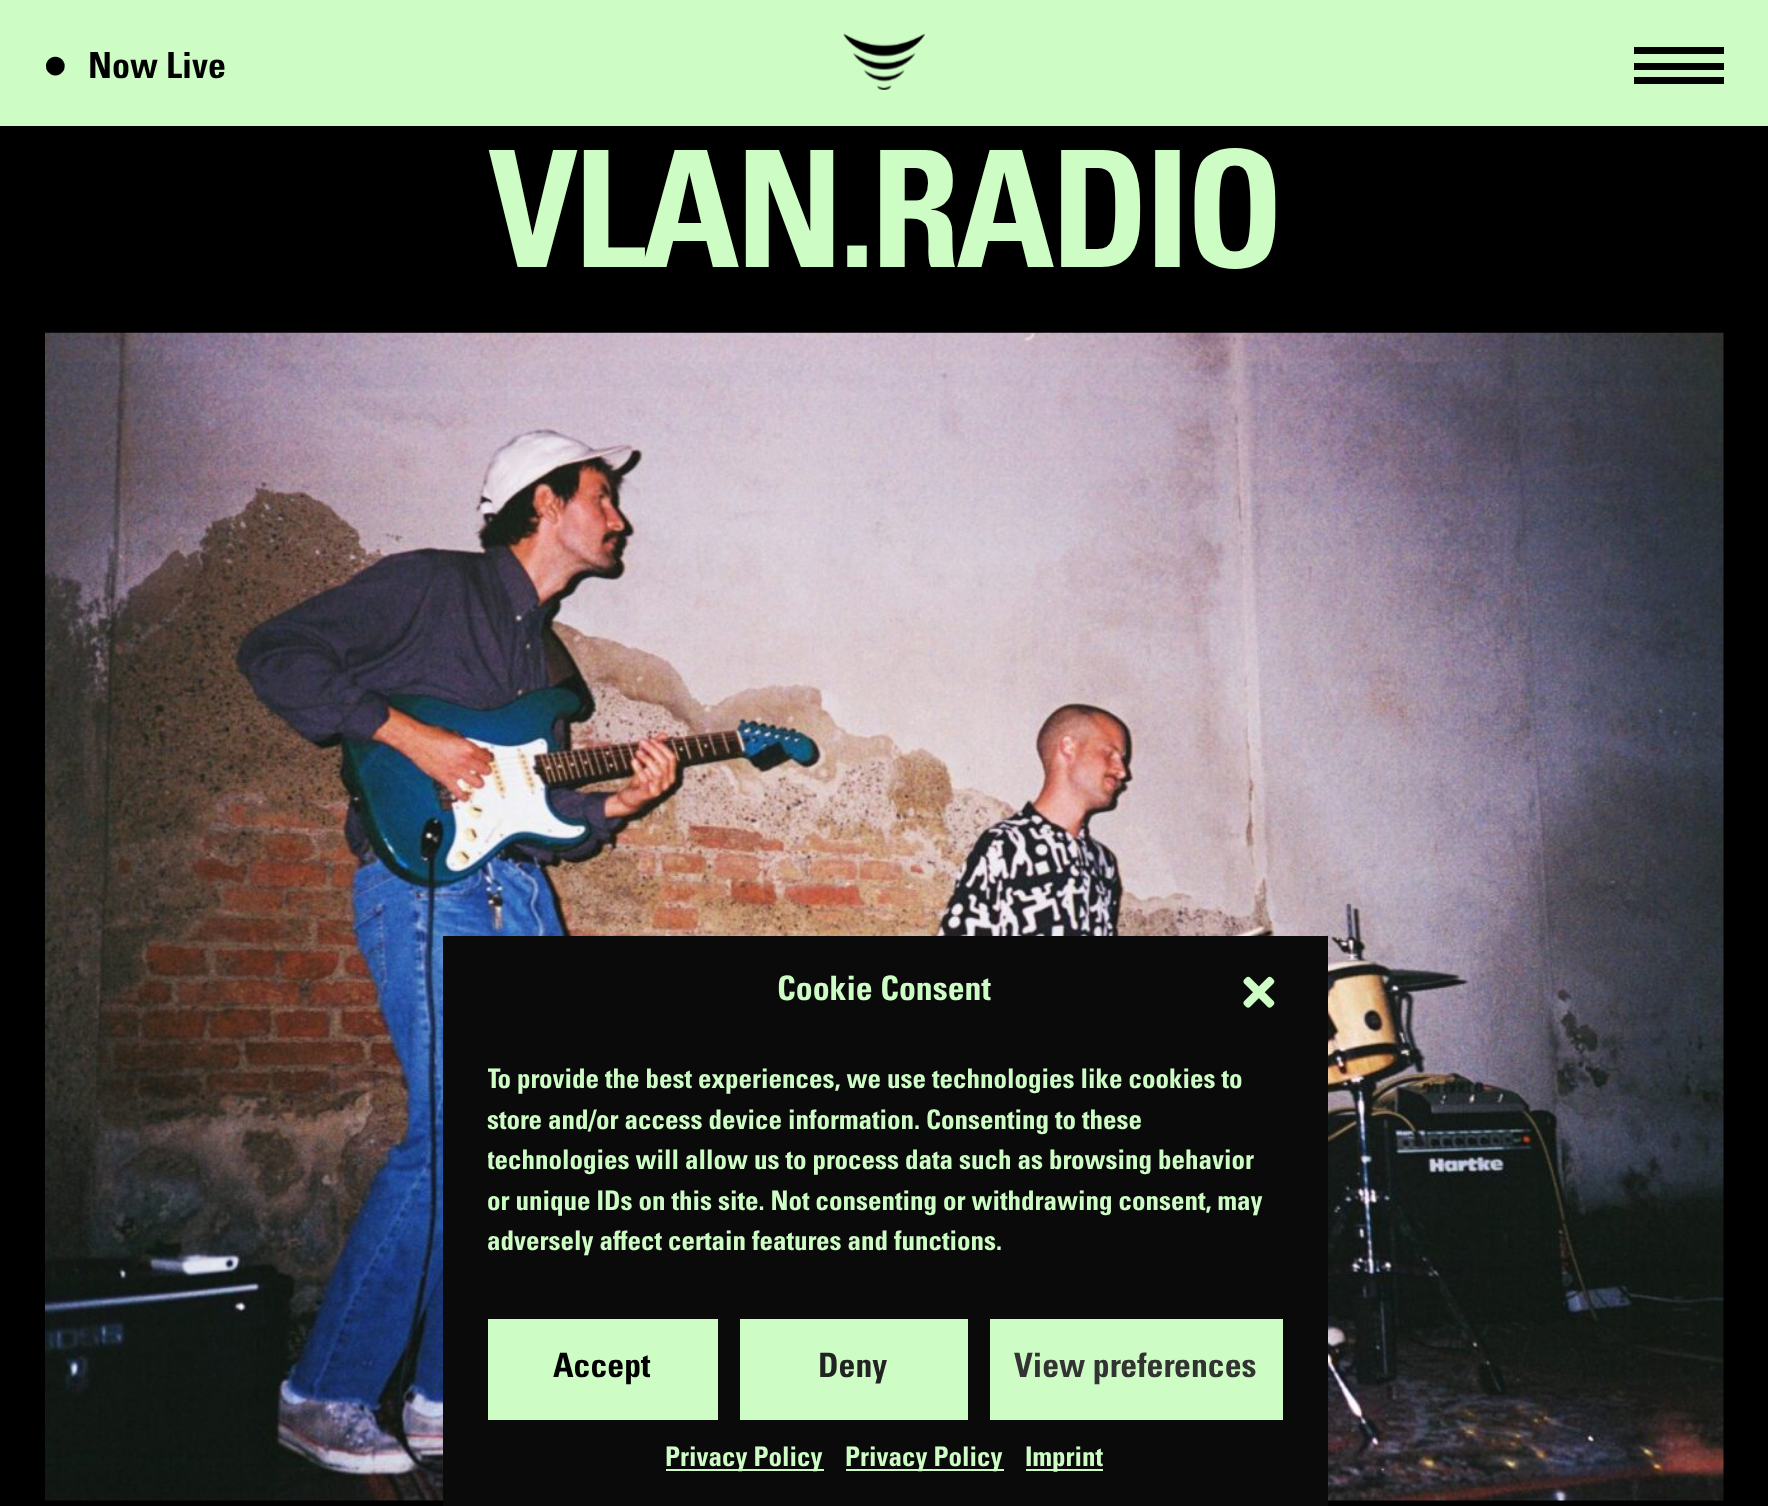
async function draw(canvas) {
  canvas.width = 1768;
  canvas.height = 1506;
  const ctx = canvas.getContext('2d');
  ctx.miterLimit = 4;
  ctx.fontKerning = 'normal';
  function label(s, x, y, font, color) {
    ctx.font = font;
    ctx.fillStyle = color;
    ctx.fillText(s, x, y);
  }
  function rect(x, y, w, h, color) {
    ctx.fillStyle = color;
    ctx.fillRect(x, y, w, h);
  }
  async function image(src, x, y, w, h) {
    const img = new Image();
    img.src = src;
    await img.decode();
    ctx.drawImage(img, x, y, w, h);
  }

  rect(0, 0, 1768, 1506, '#000');
  rect(0, 0, 1768, 126, '#cdfcc5');
  label('⬤', 45, 71, 'bold 18px DejaVu Sans', '#000');
  label('Now Live', 88, 78, 'bold 36px Univers', '#000');
  await image('assets/img1.png', 843, 33, 82, 57);
  rect(1634, 47, 90, 7, '#000');
  rect(1634, 63, 90, 7, '#000');
  rect(1634, 77, 90, 7, '#000');
  ctx.letterSpacing = '-4.5px';
  label('VLAN.RADIO', 488, 267, 'bold 162px Univers', '#cdfcc5');
  await image('assets/img2.png', 45, 332, 1679, 1169);
  rect(443, 936, 885, 570, '#0a0a0a');
  ctx.letterSpacing = '0px';
  label('Cookie Consent', 777, 1000, 'bold 33.75px Univers', '#cdfcc5');
  await image('assets/img3.png', 1243, 976, 32, 32);
  ctx.save();
  ctx.beginPath();
  ctx.rect(488, 1060, 795, 214);
  ctx.clip();
  label('To provide the best experiences, we use technologies like cookies to', 487, 1088, 'bold 27px Univers', '#cdfcc5');
  ctx.restore();
  label('store and/or access device information. Consenting to these', 487, 1129, 'bold 27px Univers', '#cdfcc5');
  ctx.save();
  ctx.beginPath();
  ctx.rect(488, 1060, 795, 214);
  ctx.clip();
  label('technologies will allow us to process data such as browsing behavior', 487, 1169, 'bold 27px Univers', '#cdfcc5');
  ctx.restore();
  label('or unique IDs on this site. Not consenting or withdrawing consent, may', 487, 1210, 'bold 27px Univers', '#cdfcc5');
  label('adversely affect certain features and functions.', 487, 1250, 'bold 27px Univers', '#cdfcc5');
  rect(488, 1319, 230, 101, '#cdfcc5');
  label('Accept', 553, 1377, 'bold 33.75px Univers', '#000');
  rect(740, 1319, 228, 101, '#cdfcc5');
  label('Deny', 818, 1377, 'bold 33.75px Univers', '#222');
  rect(990, 1319, 293, 101, '#cdfcc5');
  label('View preferences', 1014, 1377, 'bold 33.75px Univers', '#333');
  rect(666, 1469, 158, 2, '#cdfcc5');
  label('Privacy Policy', 665, 1466, 'bold 27px Univers', '#cdfcc5');
  rect(846, 1469, 158, 2, '#cdfcc5');
  label('Privacy Policy', 845, 1466, 'bold 27px Univers', '#cdfcc5');
  rect(1026, 1469, 77, 2, '#cdfcc5');
  label('Imprint', 1025, 1466, 'bold 27px Univers', '#cdfcc5');
}

draw(document.querySelector('canvas'));
